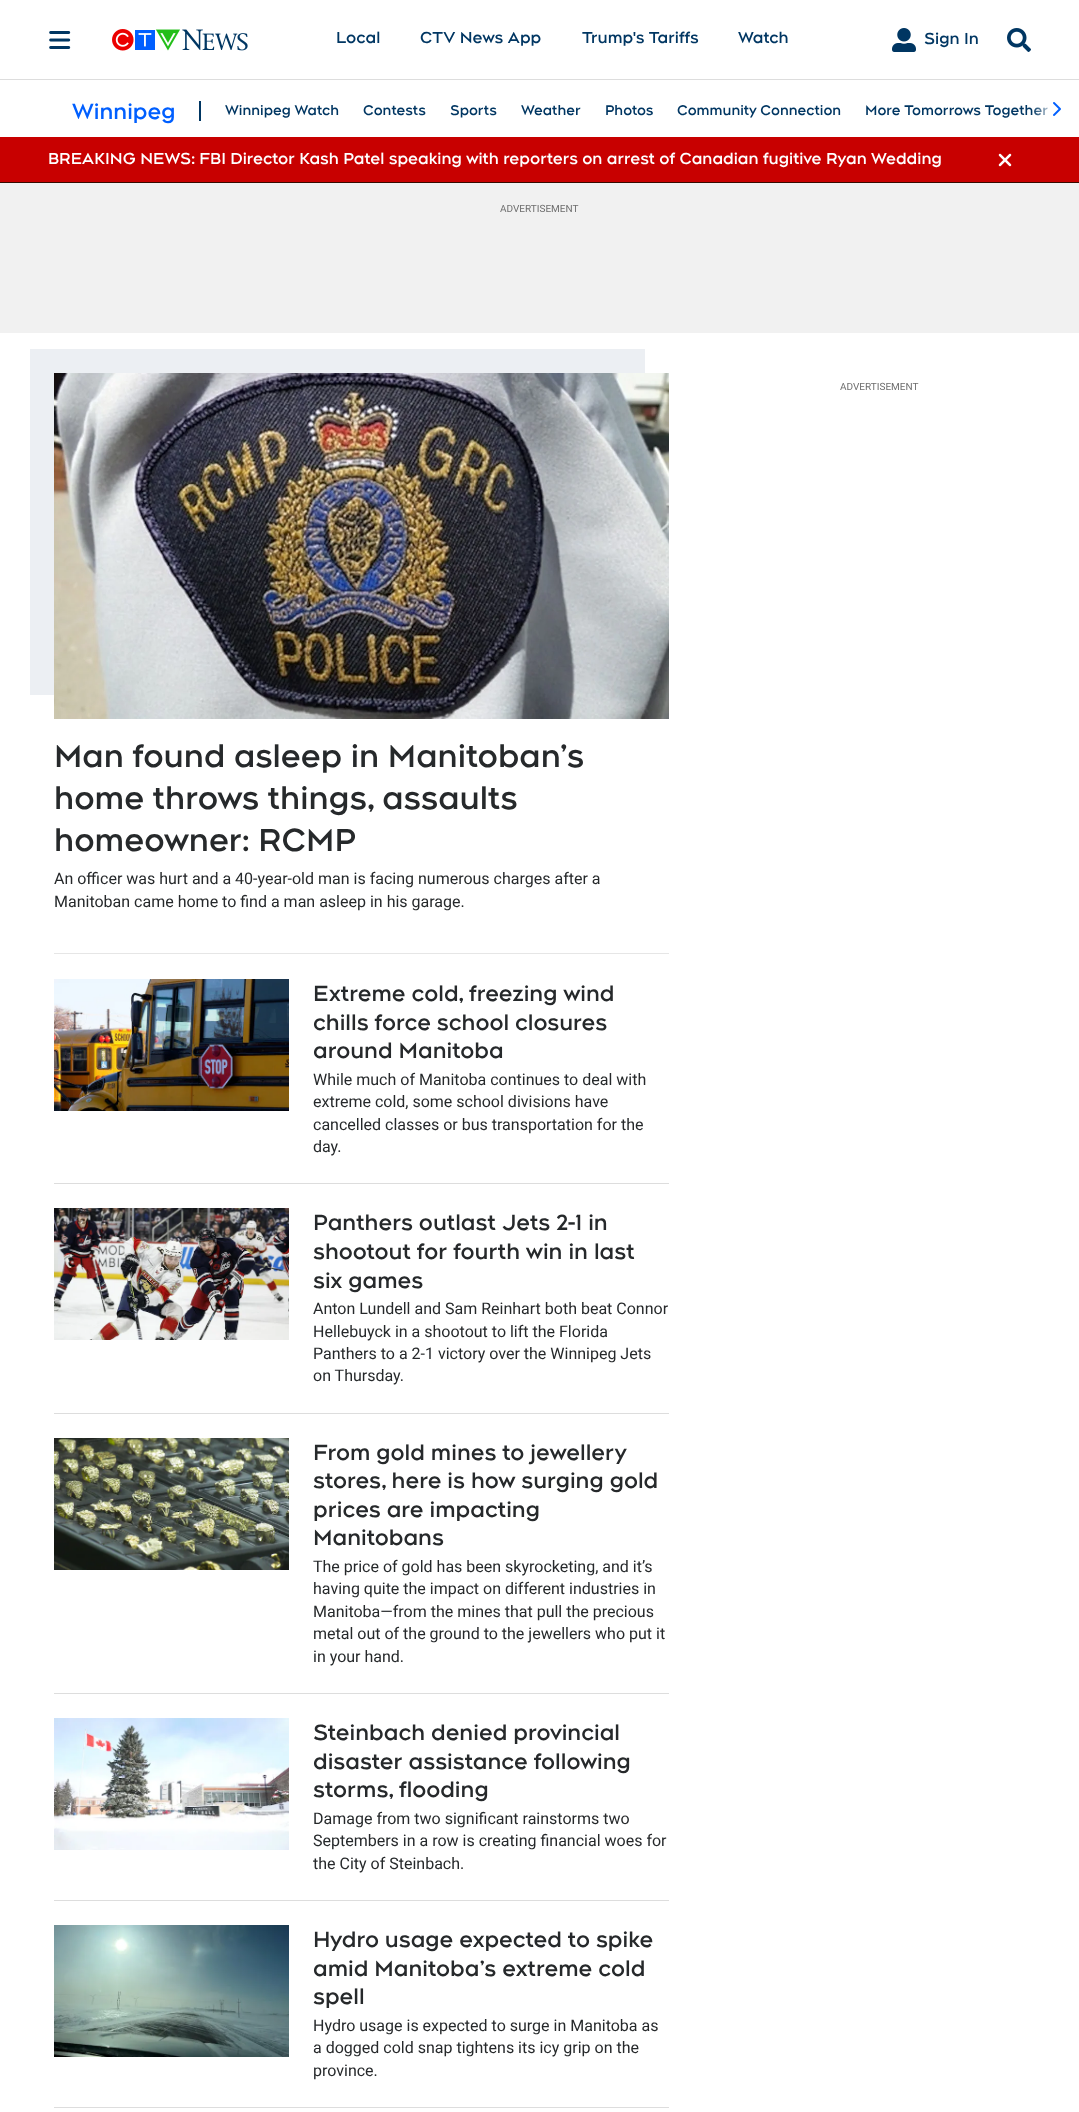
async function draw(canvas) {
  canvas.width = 1079;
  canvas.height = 2112;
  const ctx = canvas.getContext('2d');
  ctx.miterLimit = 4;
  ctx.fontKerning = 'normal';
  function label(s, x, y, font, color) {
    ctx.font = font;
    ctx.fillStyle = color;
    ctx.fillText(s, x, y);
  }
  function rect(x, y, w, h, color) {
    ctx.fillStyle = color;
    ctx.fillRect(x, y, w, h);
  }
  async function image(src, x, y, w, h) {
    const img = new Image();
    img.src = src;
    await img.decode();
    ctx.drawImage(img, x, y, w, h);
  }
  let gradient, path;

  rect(0, 0, 1079, 2112, '#fff');
  rect(0, 79, 1079, 1, '#ddd');
  await image('assets/img1.png', 49, 31, 22, 18);
  await image('assets/img2.png', 112, 29, 136, 22);
  label('Local', 336, 43, 'bold 16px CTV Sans', '#003662');
  label('CTV News App', 420, 43, 'bold 16px CTV Sans', '#003662');
  label('Trump\'s Tariffs', 582, 43, 'bold 16px CTV Sans', '#003662');
  label('Watch', 738, 43, 'bold 16px CTV Sans', '#003662');
  await image('assets/img3.png', 892, 28, 24, 24);
  label('Sign In', 924, 44, 'bold 16px CTV Sans', '#003662');
  await image('assets/img4.png', 1007, 28, 24, 24);
  label('Winnipeg', 72, 119, 'bold 22px CTV Sans', '#005fff');
  rect(199, 101, 2, 20, '#003662');
  label('Winnipeg Watch', 225, 115, 'bold 14px CTV Sans', '#003662');
  label('Contests', 363, 115, 'bold 14px CTV Sans', '#003662');
  label('Sports', 450, 115, 'bold 14px CTV Sans', '#003662');
  label('Weather', 521, 115, 'bold 14px CTV Sans', '#003662');
  label('Photos', 605, 115, 'bold 14px CTV Sans', '#003662');
  label('Community Connection', 677, 115, 'bold 14px CTV Sans', '#003662');
  label('More Tomorrows Together', 865, 115, 'bold 14px CTV Sans', '#003662');
  gradient = ctx.createLinearGradient(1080, 109, 1032, 109);
  gradient.addColorStop(0.5, '#fff');
  gradient.addColorStop(1, '#ffffff00');
  ctx.fillStyle = gradient;
  ctx.beginPath();
  ctx.roundRect(1032, 96, 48, 25, 4);
  ctx.fill();
  await image('assets/img5.png', 1053, 102, 8, 14);
  rect(0, 137, 1079, 45, '#c80000');
  rect(0, 182, 1079, 1, '#370a00');
  label('BREAKING NEWS: FBI Director Kash Patel speaking with reporters on arrest of Canadian fugitive Ryan Wedding', 48, 164, 'bold 16px CTV Sans', '#fff');
  await image('assets/img6.png', 998, 153, 14, 14);
  rect(0, 183, 1079, 150, '#f1f1f1');
  label('ADVERTISEMENT', 500, 212, '10px Roboto', '#6e6e6e');
  label('ADVERTISEMENT', 840, 390, '10px Roboto', '#6e6e6e');
  ctx.fillStyle = '#eceff3';
  path = new Path2D('M30 349V695H54V373H645V349Z');
  ctx.fill(path);
  await image('assets/img7.png', 54, 373, 615, 346);
  label('Man found asleep in Manitoban’s', 54, 767, 'bold 32px CTV Sans', '#26292b');
  label('home throws things, assaults', 54, 809, 'bold 32px CTV Sans', '#26292b');
  label('homeowner: RCMP', 54, 851, 'bold 32px CTV Sans', '#26292b');
  label('An officer was hurt and a 40-year-old man is facing numerous charges after a', 54, 884, '16px Roboto', '#26292b');
  label('Manitoban came home to find a man asleep in his garage.', 54, 907, '16px Roboto', '#26292b');
  rect(54, 953, 615, 1, '#e6e6e6');
  await image('assets/img8.png', 54, 979, 235, 132);
  label('Extreme cold, freezing wind', 313, 1001, 'bold 22px CTV Sans', '#26292b');
  label('chills force school closures', 313, 1030, 'bold 22px CTV Sans', '#26292b');
  label('around Manitoba', 313, 1058, 'bold 22px CTV Sans', '#26292b');
  label('While much of Manitoba continues to deal with', 313, 1085, '16px Roboto', '#26292b');
  label('extreme cold, some school divisions have', 313, 1107, '16px Roboto', '#26292b');
  label('cancelled classes or bus transportation for the', 313, 1130, '16px Roboto', '#26292b');
  label('day.', 313, 1152, '16px Roboto', '#26292b');
  rect(54, 1183, 615, 1, '#ddd');
  await image('assets/img9.png', 54, 1208, 235, 132);
  label('Panthers outlast Jets 2-1 in', 313, 1230, 'bold 22px CTV Sans', '#26292b');
  label('shootout for fourth win in last', 313, 1259, 'bold 22px CTV Sans', '#26292b');
  label('six games', 313, 1288, 'bold 22px CTV Sans', '#26292b');
  label('Anton Lundell and Sam Reinhart both beat Connor', 313, 1314, '16px Roboto', '#26292b');
  label('Hellebuyck in a shootout to lift the Florida', 313, 1337, '16px Roboto', '#26292b');
  label('Panthers to a 2-1 victory over the Winnipeg Jets', 313, 1359, '16px Roboto', '#26292b');
  label('on Thursday.', 313, 1381, '16px Roboto', '#26292b');
  rect(54, 1413, 615, 1, '#ddd');
  await image('assets/img10.png', 54, 1438, 235, 132);
  label('From gold mines to jewellery', 313, 1460, 'bold 22px CTV Sans', '#26292b');
  label('stores, here is how surging gold', 313, 1488, 'bold 22px CTV Sans', '#26292b');
  label('prices are impacting', 313, 1517, 'bold 22px CTV Sans', '#26292b');
  label('Manitobans', 313, 1545, 'bold 22px CTV Sans', '#26292b');
  label('The price of gold has been skyrocketing, and it’s', 313, 1572, '16px Roboto', '#26292b');
  label('having quite the impact on different industries in', 313, 1594, '16px Roboto', '#26292b');
  label('Manitoba—from the mines that pull the precious', 313, 1617, '16px Roboto', '#26292b');
  label('metal out of the ground to the jewellers who put it', 313, 1639, '16px Roboto', '#26292b');
  label('in your hand.', 313, 1662, '16px Roboto', '#26292b');
  rect(54, 1693, 615, 1, '#ddd');
  await image('assets/img11.png', 54, 1718, 235, 132);
  label('Steinbach denied provincial', 313, 1740, 'bold 22px CTV Sans', '#26292b');
  label('disaster assistance following', 313, 1769, 'bold 22px CTV Sans', '#26292b');
  label('storms, flooding', 313, 1797, 'bold 22px CTV Sans', '#26292b');
  label('Damage from two significant rainstorms two', 313, 1824, '16px Roboto', '#26292b');
  label('Septembers in a row is creating financial woes for', 313, 1846, '16px Roboto', '#26292b');
  label('the City of Steinbach.', 313, 1869, '16px Roboto', '#26292b');
  rect(54, 1900, 615, 1, '#ddd');
  await image('assets/img12.png', 54, 1925, 235, 132);
  label('Hydro usage expected to spike', 313, 1947, 'bold 22px CTV Sans', '#26292b');
  label('amid Manitoba’s extreme cold', 313, 1976, 'bold 22px CTV Sans', '#26292b');
  label('spell', 313, 2004, 'bold 22px CTV Sans', '#26292b');
  label('Hydro usage is expected to surge in Manitoba as', 313, 2031, '16px Roboto', '#26292b');
  label('a dogged cold snap tightens its icy grip on the', 313, 2053, '16px Roboto', '#26292b');
  label('province.', 313, 2076, '16px Roboto', '#26292b');
  rect(54, 2107, 615, 1, '#ddd');
}

draw(document.querySelector('canvas'));
